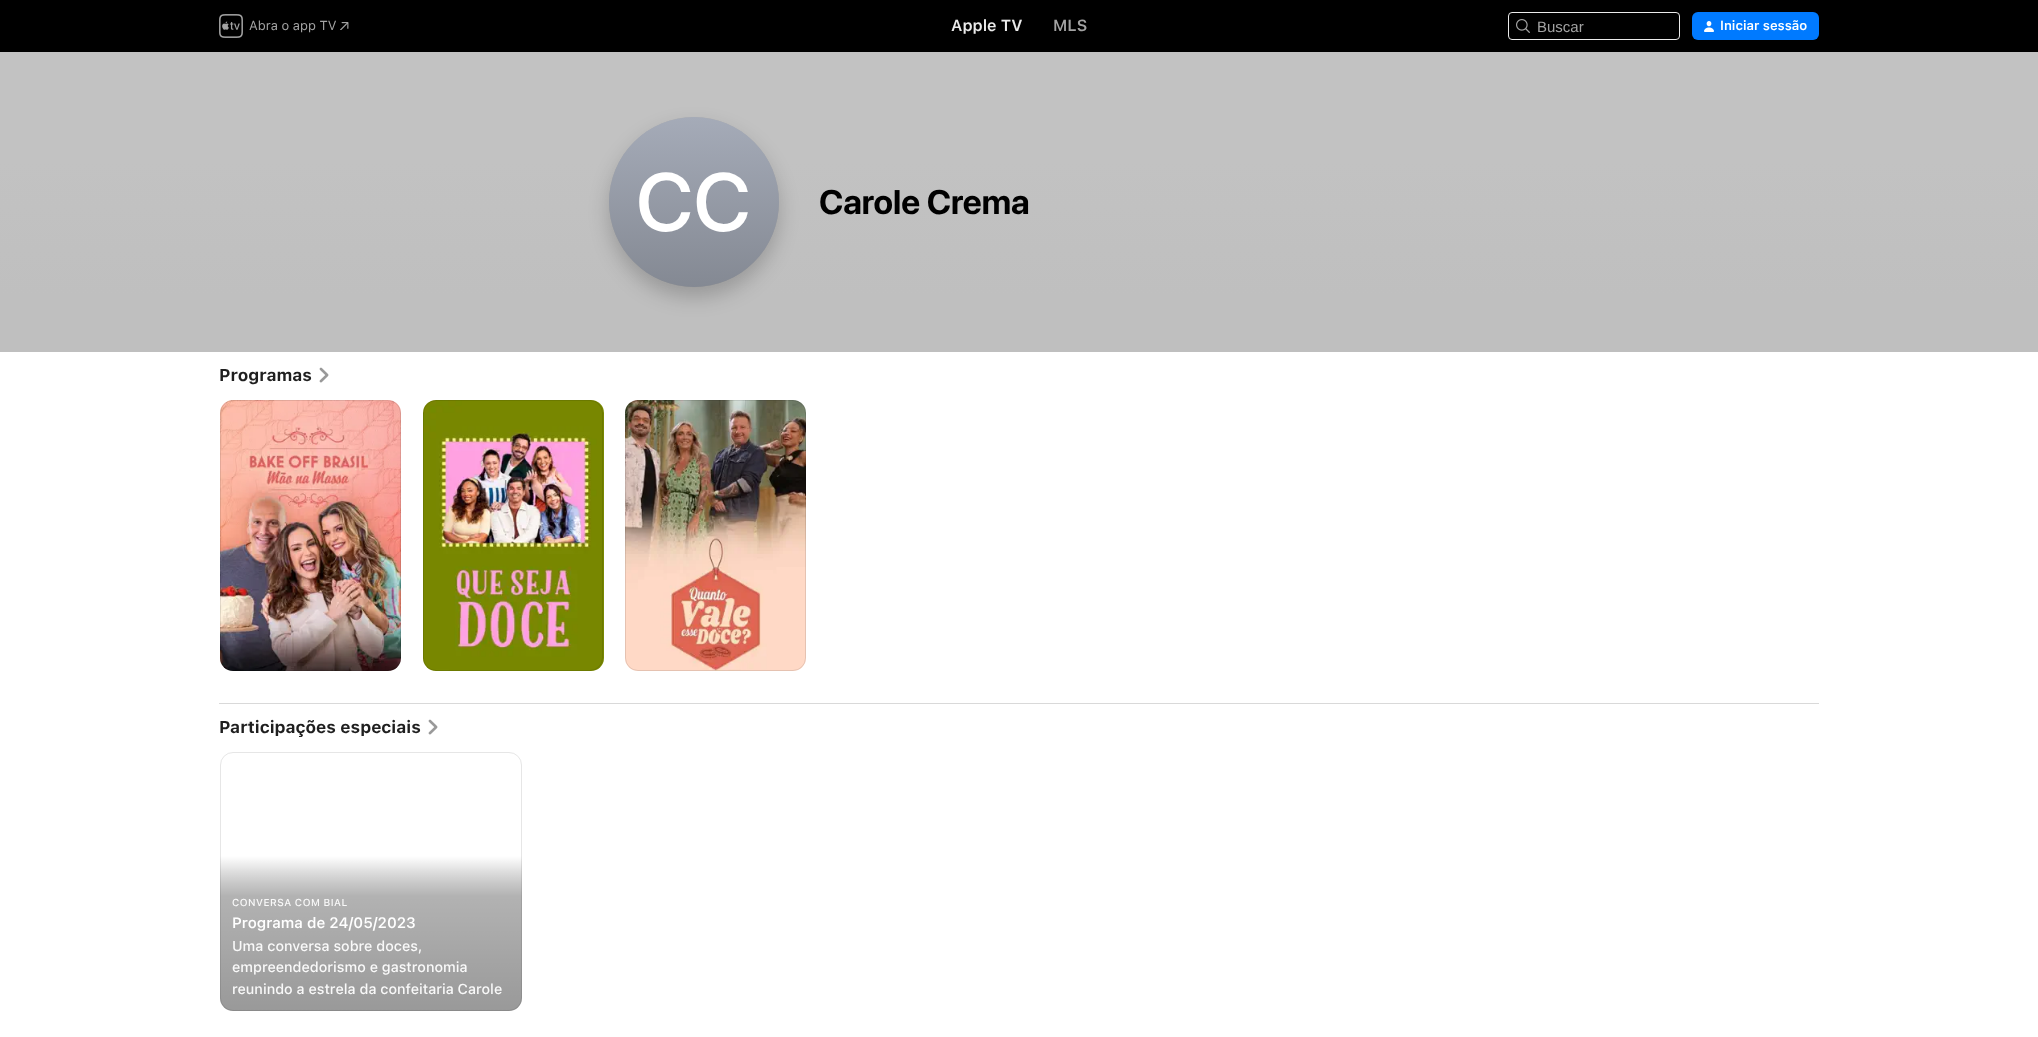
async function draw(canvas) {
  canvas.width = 2038;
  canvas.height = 1037;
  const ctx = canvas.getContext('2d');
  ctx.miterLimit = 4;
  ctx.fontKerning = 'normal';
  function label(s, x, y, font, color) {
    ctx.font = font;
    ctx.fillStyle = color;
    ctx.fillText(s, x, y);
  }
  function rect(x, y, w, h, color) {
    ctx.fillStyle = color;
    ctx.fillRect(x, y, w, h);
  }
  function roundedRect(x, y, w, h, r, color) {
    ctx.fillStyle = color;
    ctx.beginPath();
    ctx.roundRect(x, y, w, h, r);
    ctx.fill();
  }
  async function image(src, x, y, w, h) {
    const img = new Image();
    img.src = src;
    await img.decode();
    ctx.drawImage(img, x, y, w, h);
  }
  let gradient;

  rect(0, 0, 2038, 1037, '#fff');
  rect(0, 0, 2038, 52, '#000');
  await image('assets/img1.png', 219, 14, 24, 24);
  label('Abra o app TV', 249, 30, '13px SF', '#a3a3a3');
  await image('assets/img2.png', 340, 22, 9, 8);
  label('Apple TV', 951, 31, '600 16px SF', '#ebebeb');
  label('MLS', 1053, 31, '600 16px SF', '#a3a3a3');
  ctx.beginPath();
  ctx.roundRect(1508.5, 12.5, 171, 27, 3.5);
  ctx.strokeStyle = '#ebebeb';
  ctx.stroke();
  await image('assets/img3.png', 1516, 19, 14, 14);
  label('Buscar', 1537, 32, '15px Liberation Sans', '#a3a3a3');
  roundedRect(1692, 12, 127, 28, 6, '#007aff');
  await image('assets/img4.png', 1704, 21, 10, 11);
  label('Iniciar sessão', 1720, 30, '600 13px SF', '#fff');
  rect(0, 52, 2038, 110, '#c2c2c2');
  gradient = ctx.createLinearGradient(1019, 162, 1019, 352);
  gradient.addColorStop(0, '#c2c2c2');
  gradient.addColorStop(0.7, '#bfbfbf');
  ctx.fillStyle = gradient;
  ctx.fillRect(0, 162, 2038, 190);
  ctx.fillStyle = '#00000033';
  ctx.filter = 'blur(10px)';
  ctx.beginPath();
  ctx.roundRect(609, 127, 170, 170, 85);
  ctx.fill();
  ctx.filter = 'none';
  ctx.beginPath();
  ctx.arc(694, 202, 84.5, 0, 2 * Math.PI);
  ctx.strokeStyle = '#00000014';
  ctx.stroke();
  gradient = ctx.createLinearGradient(694, 117, 694, 287);
  gradient.addColorStop(0, '#a5abb8');
  gradient.addColorStop(1, '#848993');
  ctx.fillStyle = gradient;
  ctx.beginPath();
  ctx.arc(694, 202, 85, 0, 2 * Math.PI);
  ctx.fill();
  ctx.letterSpacing = '0.5px';
  label('C‌C', 636, 231, '500 82px SF', '#fff');
  ctx.letterSpacing = '0px';
  label('Carole Crema', 819, 214, 'bold 34px "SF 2"', '#000');
  label('Programas', 219, 381, 'bold 17px SF', '#1f1f1f');
  await image('assets/img5.png', 319, 367, 10, 16);
  await image('assets/img6.png', 220, 400, 181, 271);
  ctx.beginPath();
  ctx.roundRect(220.5, 400.5, 180, 270, 12.5);
  ctx.strokeStyle = '#0000001a';
  ctx.stroke();
  await image('assets/img7.png', 423, 400, 181, 271);
  ctx.beginPath();
  ctx.roundRect(423.5, 400.5, 179, 270, 12.5);
  ctx.stroke();
  await image('assets/img8.png', 625, 400, 181, 271);
  ctx.beginPath();
  ctx.roundRect(625.5, 400.5, 180, 270, 12.5);
  ctx.stroke();
  rect(219, 703, 1600, 1, '#d9d9d9');
  label('Participações especiais', 219, 733, 'bold 17px SF', '#1f1f1f');
  await image('assets/img5.png', 428, 719, 10, 16);
  ctx.beginPath();
  ctx.roundRect(220.5, 752.5, 301, 258, 12.5);
  ctx.strokeStyle = '#e6e6e6';
  ctx.stroke();
  gradient = ctx.createLinearGradient(371, 856, 371, 1011);
  gradient.addColorStop(0, '#00000000');
  gradient.addColorStop(0.1, '#00000021');
  gradient.addColorStop(0.17, '#00000036');
  gradient.addColorStop(0.26, '#0000004d');
  gradient.addColorStop(1, '#00000066');
  ctx.fillStyle = gradient;
  ctx.beginPath();
  ctx.roundRect(220, 856, 302, 155, [0, 0, 13, 13]);
  ctx.fill();
  ctx.letterSpacing = '0.5px';
  label('CONVERSA COM BIAL', 232, 906, '500 10px "SF 2"', '#f9f9f9');
  ctx.letterSpacing = '0px';
  label('Programa de 24/05/2023', 232, 928, '500 15px "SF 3"', '#fff');
  label('Uma conversa sobre doces,', 232, 951, '500 14.25px "SF 2"', '#f9f9f9');
  label('empreendedorismo e gastronomia', 232, 972, '500 14.25px "SF 2"', '#f9f9f9');
  label('reunindo a estrela da confeitaria Carole', 232, 994, '500 14.25px "SF 2"', '#f9f9f9');
}

draw(document.querySelector('canvas'));
